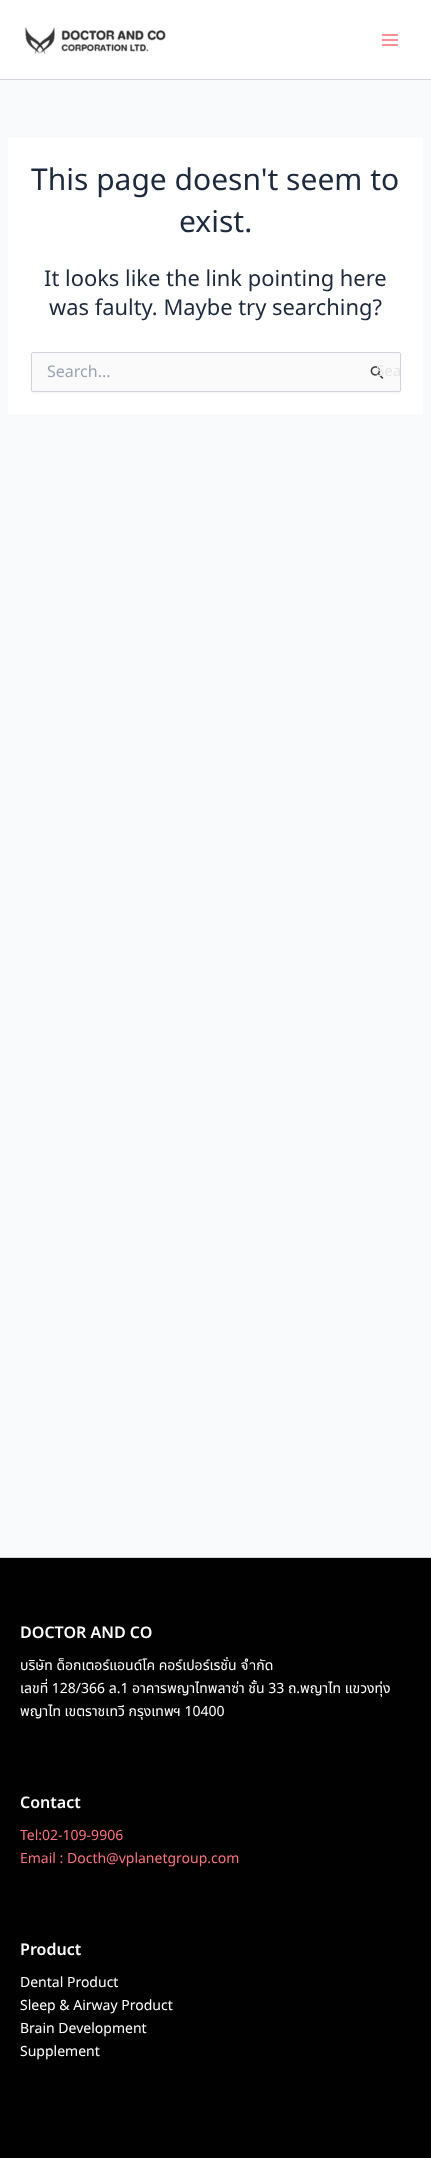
async function draw(canvas) {
  canvas.width = 431;
  canvas.height = 2158;
  const ctx = canvas.getContext('2d');
  ctx.miterLimit = 4;
  ctx.fontKerning = 'normal';
  function label(s, x, y, font, color) {
    ctx.font = font;
    ctx.fillStyle = color;
    ctx.fillText(s, x, y);
  }
  function rect(x, y, w, h, color) {
    ctx.fillStyle = color;
    ctx.fillRect(x, y, w, h);
  }
  async function image(src, x, y, w, h) {
    const img = new Image();
    img.src = src;
    await img.decode();
    ctx.drawImage(img, x, y, w, h);
  }

  rect(0, 0, 431, 2158, '#f9fafb');
  rect(0, 0, 431, 79, '#fff');
  rect(0, 79, 431, 1, '#d1d5db');
  await image('assets/img1.png', 24, 27, 142, 28);
  await image('assets/img2.png', 381, 34, 18, 12);
  rect(8, 138, 415, 276, '#fff');
  label('This page doesn\'t seem to', 31, 190, '30px Noto Sans Thai', '#1e293b');
  label('exist.', 179, 232, '30px Noto Sans Thai', '#1e293b');
  label('It looks like the link pointing here', 44, 286, '21.9px Noto Sans Thai', '#1e293b');
  label('was faulty. Maybe try searching?', 49, 315, '21.9px Noto Sans Thai', '#1e293b');
  ctx.fillStyle = '#0000000d';
  ctx.filter = 'blur(1px)';
  ctx.beginPath();
  ctx.roundRect(31, 353, 370, 40, 2);
  ctx.fill();
  ctx.filter = 'none';
  ctx.fillStyle = '#fafafa';
  ctx.beginPath();
  ctx.roundRect(31.5, 352.5, 369, 39, 1.5);
  ctx.fill();
  ctx.strokeStyle = '#d1d5db';
  ctx.stroke();
  label('Search...', 47, 377, '16px Noto Sans Thai', '#9ca3af');
  await image('assets/img3.png', 370, 366, 14, 13);
  label('Sea', 376, 376, '15px Noto Sans Thai', '#e6e6e6');
  rect(0, 1558, 431, 600, '#010101');
  rect(0, 1557, 431, 1, '#d1d5db');
  label('DOCTOR AND CO', 20, 1638, '600 16px Noto Sans Thai', '#fff');
  label('บริษัท ด็อกเตอร์แอนด์โค คอร์เปอร์เรชั่น จำกัด', 20, 1670, '14px Noto Sans Thai', '#fff');
  label('เลขที่ 128/366 ล.1 อาคารพญาไทพลาซ่า ชั้น 33 ถ.พญาไท แขวงทุ่ง', 20, 1693, '14px Noto Sans Thai', '#fff');
  label('พญาไท เขตราชเทวี กรุงเทพฯ 10400', 20, 1716, '14px Noto Sans Thai', '#fff');
  label('Contact', 20, 1808, '600 16px Noto Sans Thai', '#fff');
  label('Tel:02-109-9906', 20, 1840, '14px Noto Sans Thai', '#fa737d');
  label('Email : Docth@vplanetgroup.com', 20, 1863, '14px Noto Sans Thai', '#fa737d');
  label('Product', 20, 1955, '600 16px Noto Sans Thai', '#fff');
  label('Dental Product', 20, 1987, '14px Noto Sans Thai', '#fff');
  label('Sleep & Airway Product', 20, 2010, '14px Noto Sans Thai', '#fff');
  label('Brain Development', 20, 2033, '14px Noto Sans Thai', '#fff');
  label('Supplement', 20, 2056, '14px Noto Sans Thai', '#fff');
}

draw(document.querySelector('canvas'));
